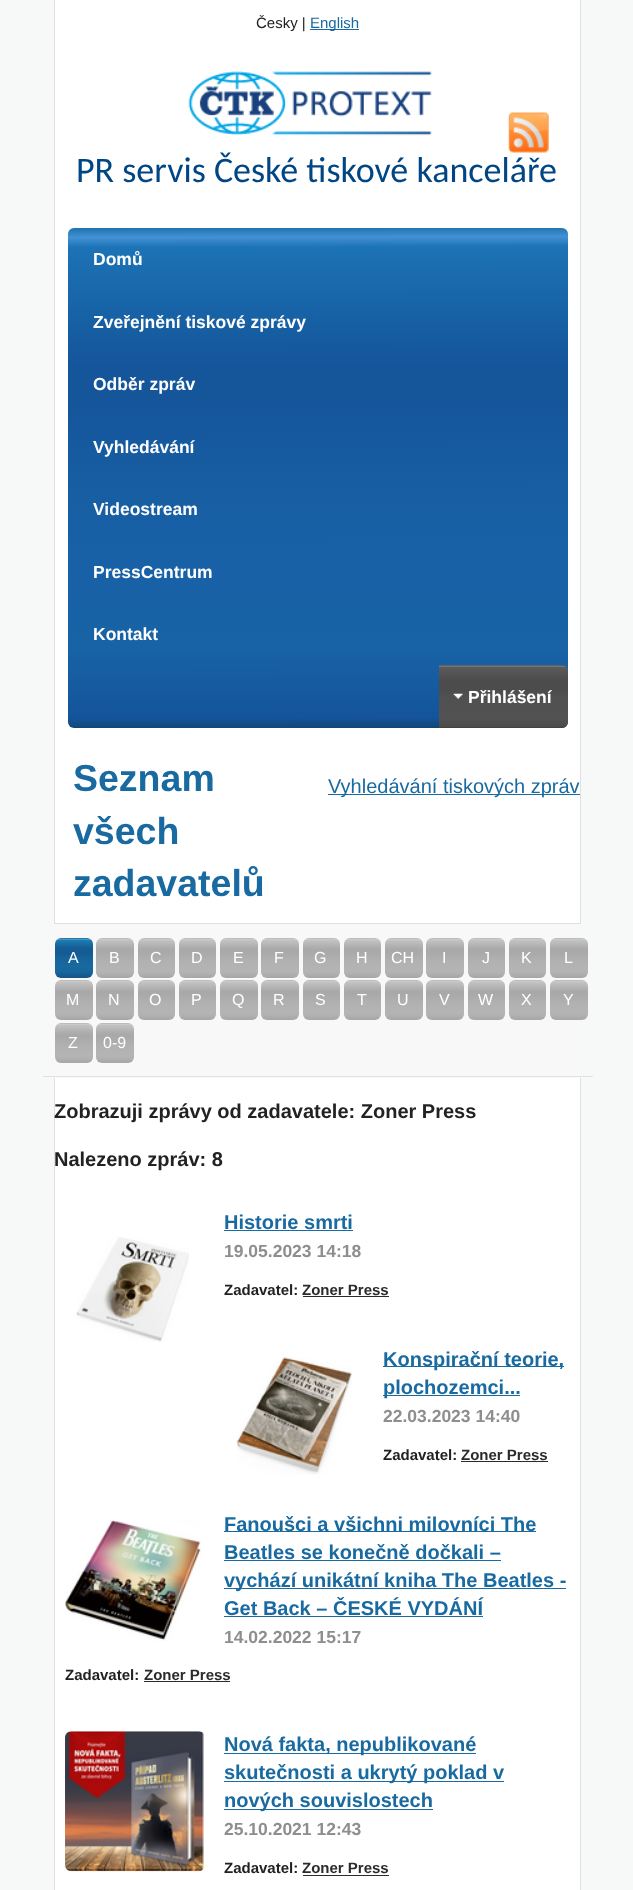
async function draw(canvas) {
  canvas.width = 633;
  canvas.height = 1890;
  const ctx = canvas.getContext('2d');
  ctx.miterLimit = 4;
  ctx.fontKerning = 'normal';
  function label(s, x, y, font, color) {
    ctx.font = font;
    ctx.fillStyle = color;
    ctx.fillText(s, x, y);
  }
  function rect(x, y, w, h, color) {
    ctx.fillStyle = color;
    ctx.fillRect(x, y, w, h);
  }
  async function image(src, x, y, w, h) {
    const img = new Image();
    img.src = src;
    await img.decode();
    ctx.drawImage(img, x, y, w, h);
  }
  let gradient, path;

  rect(0, 0, 633, 1890, '#f7f8f8');
  rect(55, 0, 525, 1890, '#fff');
  ctx.fillStyle = '#e0e0e0';
  path = new Path2D('M54 0H581V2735C581 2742 576 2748 569 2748H66C59 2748 54 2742 54 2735ZM55 0H580V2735C580 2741 575 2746 569 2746H66C60 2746 55 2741 55 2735Z');
  ctx.fill(path, 'evenodd');
  label('Česky |', 256, 28, '15px Liberation Sans', '#222');
  rect(310, 29, 49, 1, '#186aa0');
  label('English', 310, 28, '15px Liberation Sans', '#186aa0');
  await image('assets/img1.png', 188, 71, 244, 65);
  label('PR servis České tiskové kanceláře', 76, 182, '36px Carlito', '#004584');
  await image('assets/img2.png', 508, 112, 41, 41);
  gradient = ctx.createLinearGradient(317, 227, 318, 728);
  gradient.addColorStop(0, '#1c71aa');
  gradient.addColorStop(0.02, '#4291d5');
  gradient.addColorStop(0.04, '#1c73b5');
  gradient.addColorStop(0.24, '#15599e');
  gradient.addColorStop(0.28, '#15569b');
  gradient.addColorStop(0.36, '#15569b');
  gradient.addColorStop(0.5, '#175da2');
  gradient.addColorStop(0.66, '#1861a6');
  gradient.addColorStop(0.84, '#1862a6');
  gradient.addColorStop(0.98, '#14549a');
  gradient.addColorStop(1, '#134676');
  ctx.fillStyle = gradient;
  ctx.beginPath();
  ctx.roundRect(68, 228, 500, 500, 6);
  ctx.fill();
  label('Domů', 93, 265, 'bold 17.5px Liberation Sans', '#fff');
  label('Zveřejnění tiskové zprávy', 93, 328, 'bold 17.5px Liberation Sans', '#fff');
  label('Odběr zpráv', 93, 390, 'bold 17.5px Liberation Sans', '#fff');
  label('Vyhledávání', 93, 453, 'bold 17.5px Liberation Sans', '#fff');
  label('Videostream', 93, 515, 'bold 17.5px Liberation Sans', '#fff');
  label('PressCentrum', 93, 578, 'bold 17.5px Liberation Sans', '#fff');
  label('Kontakt', 93, 640, 'bold 17.5px Liberation Sans', '#fff');
  gradient = ctx.createLinearGradient(503, 665, 503, 728);
  gradient.addColorStop(0, '#555');
  gradient.addColorStop(0.02, '#787878');
  gradient.addColorStop(0.04, '#5a5a5a');
  gradient.addColorStop(0.22, '#4e4e4e');
  gradient.addColorStop(0.26, '#4c4c4c');
  gradient.addColorStop(0.4, '#4c4c4c');
  gradient.addColorStop(0.5, '#505050');
  gradient.addColorStop(0.84, '#525252');
  gradient.addColorStop(0.98, '#4b4b4b');
  gradient.addColorStop(1, '#3b3b3b');
  ctx.fillStyle = gradient;
  ctx.beginPath();
  ctx.roundRect(439, 665, 129, 63, [0, 6, 6, 0]);
  ctx.fill();
  await image('assets/img3.png', 453, 693, 10, 6);
  label('Přihlášení', 468, 703, 'bold 17.5px Liberation Sans', '#fff');
  rect(55, 923, 525, 1, '#e1e1e1');
  label('Seznam', 73, 791, 'bold 37.5px Liberation Sans', '#186aa0');
  label('všech', 73, 844, 'bold 37.5px Liberation Sans', '#186aa0');
  label('zadavatelů', 73, 896, 'bold 37.5px Liberation Sans', '#186aa0');
  rect(328, 794, 252, 1, '#186aa0');
  label('Vyhledávání tiskových zpráv', 328, 793, '20px Liberation Sans', '#186aa0');
  rect(54, 924, 527, 154, '#f8f8f8');
  rect(43, 1076, 550, 1, '#e1e1e1');
  gradient = ctx.createLinearGradient(74, 938, 74, 978);
  gradient.addColorStop(0, '#0f5788');
  gradient.addColorStop(0.03, '#4ea2d3');
  gradient.addColorStop(0.06, '#1c7cb0');
  gradient.addColorStop(0.25, '#155d94');
  gradient.addColorStop(0.38, '#155b93');
  gradient.addColorStop(0.5, '#16639a');
  gradient.addColorStop(0.69, '#18699f');
  gradient.addColorStop(0.84, '#17679d');
  gradient.addColorStop(0.97, '#14578f');
  gradient.addColorStop(1, '#355168');
  ctx.fillStyle = gradient;
  ctx.beginPath();
  ctx.roundRect(55, 938, 38, 40, 6);
  ctx.fill();
  label('A', 68, 963, '16px Liberation Sans', '#fff');
  gradient = ctx.createLinearGradient(115, 938, 115, 978);
  gradient.addColorStop(0, '#b1b1b1');
  gradient.addColorStop(0.03, '#ccc');
  gradient.addColorStop(0.06, '#c2c2c2');
  gradient.addColorStop(0.23, '#aeaeae');
  gradient.addColorStop(0.29, '#a9a9a9');
  gradient.addColorStop(0.35, '#a9a9a9');
  gradient.addColorStop(0.58, '#b1b1b1');
  gradient.addColorStop(0.81, '#b4b4b4');
  gradient.addColorStop(0.87, '#b2b2b2');
  gradient.addColorStop(1, '#a6a6a6');
  ctx.fillStyle = gradient;
  ctx.beginPath();
  ctx.roundRect(96, 938, 38, 40, 6);
  ctx.fill();
  label('B', 109, 963, '16px Liberation Sans', '#fff');
  gradient = ctx.createLinearGradient(156, 938, 156, 978);
  gradient.addColorStop(0, '#b1b1b1');
  gradient.addColorStop(0.03, '#ccc');
  gradient.addColorStop(0.06, '#c2c2c2');
  gradient.addColorStop(0.23, '#aeaeae');
  gradient.addColorStop(0.29, '#a9a9a9');
  gradient.addColorStop(0.35, '#a9a9a9');
  gradient.addColorStop(0.58, '#b1b1b1');
  gradient.addColorStop(0.81, '#b4b4b4');
  gradient.addColorStop(0.87, '#b2b2b2');
  gradient.addColorStop(1, '#a6a6a6');
  ctx.fillStyle = gradient;
  ctx.beginPath();
  ctx.roundRect(138, 938, 37, 40, 6);
  ctx.fill();
  label('C', 150, 963, '16px Liberation Sans', '#fff');
  gradient = ctx.createLinearGradient(198, 938, 198, 978);
  gradient.addColorStop(0, '#b1b1b1');
  gradient.addColorStop(0.03, '#ccc');
  gradient.addColorStop(0.06, '#c2c2c2');
  gradient.addColorStop(0.23, '#aeaeae');
  gradient.addColorStop(0.29, '#a9a9a9');
  gradient.addColorStop(0.35, '#a9a9a9');
  gradient.addColorStop(0.58, '#b1b1b1');
  gradient.addColorStop(0.81, '#b4b4b4');
  gradient.addColorStop(0.87, '#b2b2b2');
  gradient.addColorStop(1, '#a6a6a6');
  ctx.fillStyle = gradient;
  ctx.beginPath();
  ctx.roundRect(179, 938, 37, 40, 6);
  ctx.fill();
  label('D', 191, 963, '16px Liberation Sans', '#fff');
  gradient = ctx.createLinearGradient(239, 938, 239, 978);
  gradient.addColorStop(0, '#b1b1b1');
  gradient.addColorStop(0.03, '#ccc');
  gradient.addColorStop(0.06, '#c2c2c2');
  gradient.addColorStop(0.23, '#aeaeae');
  gradient.addColorStop(0.29, '#a9a9a9');
  gradient.addColorStop(0.35, '#a9a9a9');
  gradient.addColorStop(0.58, '#b1b1b1');
  gradient.addColorStop(0.81, '#b4b4b4');
  gradient.addColorStop(0.87, '#b2b2b2');
  gradient.addColorStop(1, '#a6a6a6');
  ctx.fillStyle = gradient;
  ctx.beginPath();
  ctx.roundRect(220, 938, 38, 40, 6);
  ctx.fill();
  label('E', 233, 963, '16px Liberation Sans', '#fff');
  gradient = ctx.createLinearGradient(280, 938, 280, 978);
  gradient.addColorStop(0, '#b1b1b1');
  gradient.addColorStop(0.03, '#ccc');
  gradient.addColorStop(0.06, '#c2c2c2');
  gradient.addColorStop(0.23, '#aeaeae');
  gradient.addColorStop(0.29, '#a9a9a9');
  gradient.addColorStop(0.35, '#a9a9a9');
  gradient.addColorStop(0.58, '#b1b1b1');
  gradient.addColorStop(0.81, '#b4b4b4');
  gradient.addColorStop(0.87, '#b2b2b2');
  gradient.addColorStop(1, '#a6a6a6');
  ctx.fillStyle = gradient;
  ctx.beginPath();
  ctx.roundRect(261, 938, 38, 40, 6);
  ctx.fill();
  label('F', 274, 963, '16px Liberation Sans', '#fff');
  gradient = ctx.createLinearGradient(321, 938, 321, 978);
  gradient.addColorStop(0, '#b1b1b1');
  gradient.addColorStop(0.03, '#ccc');
  gradient.addColorStop(0.06, '#c2c2c2');
  gradient.addColorStop(0.23, '#aeaeae');
  gradient.addColorStop(0.29, '#a9a9a9');
  gradient.addColorStop(0.35, '#a9a9a9');
  gradient.addColorStop(0.58, '#b1b1b1');
  gradient.addColorStop(0.81, '#b4b4b4');
  gradient.addColorStop(0.87, '#b2b2b2');
  gradient.addColorStop(1, '#a6a6a6');
  ctx.fillStyle = gradient;
  ctx.beginPath();
  ctx.roundRect(303, 938, 37, 40, 6);
  ctx.fill();
  label('G', 314, 963, '16px Liberation Sans', '#fff');
  gradient = ctx.createLinearGradient(363, 938, 363, 978);
  gradient.addColorStop(0, '#b1b1b1');
  gradient.addColorStop(0.03, '#ccc');
  gradient.addColorStop(0.06, '#c2c2c2');
  gradient.addColorStop(0.23, '#aeaeae');
  gradient.addColorStop(0.29, '#a9a9a9');
  gradient.addColorStop(0.35, '#a9a9a9');
  gradient.addColorStop(0.58, '#b1b1b1');
  gradient.addColorStop(0.81, '#b4b4b4');
  gradient.addColorStop(0.87, '#b2b2b2');
  gradient.addColorStop(1, '#a6a6a6');
  ctx.fillStyle = gradient;
  ctx.beginPath();
  ctx.roundRect(344, 938, 37, 40, 6);
  ctx.fill();
  label('H', 356, 963, '16px Liberation Sans', '#fff');
  gradient = ctx.createLinearGradient(404, 938, 404, 978);
  gradient.addColorStop(0, '#b1b1b1');
  gradient.addColorStop(0.03, '#ccc');
  gradient.addColorStop(0.06, '#c2c2c2');
  gradient.addColorStop(0.23, '#aeaeae');
  gradient.addColorStop(0.29, '#a9a9a9');
  gradient.addColorStop(0.35, '#a9a9a9');
  gradient.addColorStop(0.58, '#b1b1b1');
  gradient.addColorStop(0.81, '#b4b4b4');
  gradient.addColorStop(0.87, '#b2b2b2');
  gradient.addColorStop(1, '#a6a6a6');
  ctx.fillStyle = gradient;
  ctx.beginPath();
  ctx.roundRect(385, 938, 38, 40, 6);
  ctx.fill();
  label('CH', 391, 963, '16px Liberation Sans', '#fff');
  gradient = ctx.createLinearGradient(445, 938, 445, 978);
  gradient.addColorStop(0, '#b1b1b1');
  gradient.addColorStop(0.03, '#ccc');
  gradient.addColorStop(0.06, '#c2c2c2');
  gradient.addColorStop(0.23, '#aeaeae');
  gradient.addColorStop(0.29, '#a9a9a9');
  gradient.addColorStop(0.35, '#a9a9a9');
  gradient.addColorStop(0.58, '#b1b1b1');
  gradient.addColorStop(0.81, '#b4b4b4');
  gradient.addColorStop(0.87, '#b2b2b2');
  gradient.addColorStop(1, '#a6a6a6');
  ctx.fillStyle = gradient;
  ctx.beginPath();
  ctx.roundRect(426, 938, 38, 40, 6);
  ctx.fill();
  label('I', 442, 963, '16px Liberation Sans', '#fff');
  gradient = ctx.createLinearGradient(486, 938, 486, 978);
  gradient.addColorStop(0, '#b1b1b1');
  gradient.addColorStop(0.03, '#ccc');
  gradient.addColorStop(0.06, '#c2c2c2');
  gradient.addColorStop(0.23, '#aeaeae');
  gradient.addColorStop(0.29, '#a9a9a9');
  gradient.addColorStop(0.35, '#a9a9a9');
  gradient.addColorStop(0.58, '#b1b1b1');
  gradient.addColorStop(0.81, '#b4b4b4');
  gradient.addColorStop(0.87, '#b2b2b2');
  gradient.addColorStop(1, '#a6a6a6');
  ctx.fillStyle = gradient;
  ctx.beginPath();
  ctx.roundRect(468, 938, 37, 40, 6);
  ctx.fill();
  label('J', 482, 963, '16px Liberation Sans', '#fff');
  gradient = ctx.createLinearGradient(528, 938, 528, 978);
  gradient.addColorStop(0, '#b1b1b1');
  gradient.addColorStop(0.03, '#ccc');
  gradient.addColorStop(0.06, '#c2c2c2');
  gradient.addColorStop(0.23, '#aeaeae');
  gradient.addColorStop(0.29, '#a9a9a9');
  gradient.addColorStop(0.35, '#a9a9a9');
  gradient.addColorStop(0.58, '#b1b1b1');
  gradient.addColorStop(0.81, '#b4b4b4');
  gradient.addColorStop(0.87, '#b2b2b2');
  gradient.addColorStop(1, '#a6a6a6');
  ctx.fillStyle = gradient;
  ctx.beginPath();
  ctx.roundRect(509, 938, 37, 40, 6);
  ctx.fill();
  label('K', 521, 963, '16px Liberation Sans', '#fff');
  gradient = ctx.createLinearGradient(569, 938, 569, 978);
  gradient.addColorStop(0, '#b1b1b1');
  gradient.addColorStop(0.03, '#ccc');
  gradient.addColorStop(0.06, '#c2c2c2');
  gradient.addColorStop(0.23, '#aeaeae');
  gradient.addColorStop(0.29, '#a9a9a9');
  gradient.addColorStop(0.35, '#a9a9a9');
  gradient.addColorStop(0.58, '#b1b1b1');
  gradient.addColorStop(0.81, '#b4b4b4');
  gradient.addColorStop(0.87, '#b2b2b2');
  gradient.addColorStop(1, '#a6a6a6');
  ctx.fillStyle = gradient;
  ctx.beginPath();
  ctx.roundRect(550, 938, 38, 40, 6);
  ctx.fill();
  label('L', 564, 963, '16px Liberation Sans', '#fff');
  gradient = ctx.createLinearGradient(74, 980, 74, 1020);
  gradient.addColorStop(0, '#b1b1b1');
  gradient.addColorStop(0.03, '#ccc');
  gradient.addColorStop(0.06, '#c2c2c2');
  gradient.addColorStop(0.23, '#aeaeae');
  gradient.addColorStop(0.29, '#a9a9a9');
  gradient.addColorStop(0.35, '#a9a9a9');
  gradient.addColorStop(0.58, '#b1b1b1');
  gradient.addColorStop(0.81, '#b4b4b4');
  gradient.addColorStop(0.87, '#b2b2b2');
  gradient.addColorStop(1, '#a6a6a6');
  ctx.fillStyle = gradient;
  ctx.beginPath();
  ctx.roundRect(55, 980, 38, 40, 6);
  ctx.fill();
  label('M', 66, 1005, '16px Liberation Sans', '#fff');
  gradient = ctx.createLinearGradient(115, 980, 115, 1020);
  gradient.addColorStop(0, '#b1b1b1');
  gradient.addColorStop(0.03, '#ccc');
  gradient.addColorStop(0.06, '#c2c2c2');
  gradient.addColorStop(0.23, '#aeaeae');
  gradient.addColorStop(0.29, '#a9a9a9');
  gradient.addColorStop(0.35, '#a9a9a9');
  gradient.addColorStop(0.58, '#b1b1b1');
  gradient.addColorStop(0.81, '#b4b4b4');
  gradient.addColorStop(0.87, '#b2b2b2');
  gradient.addColorStop(1, '#a6a6a6');
  ctx.fillStyle = gradient;
  ctx.beginPath();
  ctx.roundRect(96, 980, 38, 40, 6);
  ctx.fill();
  label('N', 108, 1005, '16px Liberation Sans', '#fff');
  gradient = ctx.createLinearGradient(156, 980, 156, 1020);
  gradient.addColorStop(0, '#b1b1b1');
  gradient.addColorStop(0.03, '#ccc');
  gradient.addColorStop(0.06, '#c2c2c2');
  gradient.addColorStop(0.23, '#aeaeae');
  gradient.addColorStop(0.29, '#a9a9a9');
  gradient.addColorStop(0.35, '#a9a9a9');
  gradient.addColorStop(0.58, '#b1b1b1');
  gradient.addColorStop(0.81, '#b4b4b4');
  gradient.addColorStop(0.87, '#b2b2b2');
  gradient.addColorStop(1, '#a6a6a6');
  ctx.fillStyle = gradient;
  ctx.beginPath();
  ctx.roundRect(138, 980, 37, 40, 6);
  ctx.fill();
  label('O', 149, 1005, '16px Liberation Sans', '#fff');
  gradient = ctx.createLinearGradient(198, 980, 198, 1020);
  gradient.addColorStop(0, '#b1b1b1');
  gradient.addColorStop(0.03, '#ccc');
  gradient.addColorStop(0.06, '#c2c2c2');
  gradient.addColorStop(0.23, '#aeaeae');
  gradient.addColorStop(0.29, '#a9a9a9');
  gradient.addColorStop(0.35, '#a9a9a9');
  gradient.addColorStop(0.58, '#b1b1b1');
  gradient.addColorStop(0.81, '#b4b4b4');
  gradient.addColorStop(0.87, '#b2b2b2');
  gradient.addColorStop(1, '#a6a6a6');
  ctx.fillStyle = gradient;
  ctx.beginPath();
  ctx.roundRect(179, 980, 37, 40, 6);
  ctx.fill();
  label('P', 191, 1005, '16px Liberation Sans', '#fff');
  gradient = ctx.createLinearGradient(239, 980, 239, 1020);
  gradient.addColorStop(0, '#b1b1b1');
  gradient.addColorStop(0.03, '#ccc');
  gradient.addColorStop(0.06, '#c2c2c2');
  gradient.addColorStop(0.23, '#aeaeae');
  gradient.addColorStop(0.29, '#a9a9a9');
  gradient.addColorStop(0.35, '#a9a9a9');
  gradient.addColorStop(0.58, '#b1b1b1');
  gradient.addColorStop(0.81, '#b4b4b4');
  gradient.addColorStop(0.87, '#b2b2b2');
  gradient.addColorStop(1, '#a6a6a6');
  ctx.fillStyle = gradient;
  ctx.beginPath();
  ctx.roundRect(220, 980, 38, 40, 6);
  ctx.fill();
  label('Q', 232, 1005, '16px Liberation Sans', '#fff');
  gradient = ctx.createLinearGradient(280, 980, 280, 1020);
  gradient.addColorStop(0, '#b1b1b1');
  gradient.addColorStop(0.03, '#ccc');
  gradient.addColorStop(0.06, '#c2c2c2');
  gradient.addColorStop(0.23, '#aeaeae');
  gradient.addColorStop(0.29, '#a9a9a9');
  gradient.addColorStop(0.35, '#a9a9a9');
  gradient.addColorStop(0.58, '#b1b1b1');
  gradient.addColorStop(0.81, '#b4b4b4');
  gradient.addColorStop(0.87, '#b2b2b2');
  gradient.addColorStop(1, '#a6a6a6');
  ctx.fillStyle = gradient;
  ctx.beginPath();
  ctx.roundRect(261, 980, 38, 40, 6);
  ctx.fill();
  label('R', 273, 1005, '16px Liberation Sans', '#fff');
  gradient = ctx.createLinearGradient(321, 980, 321, 1020);
  gradient.addColorStop(0, '#b1b1b1');
  gradient.addColorStop(0.03, '#ccc');
  gradient.addColorStop(0.06, '#c2c2c2');
  gradient.addColorStop(0.23, '#aeaeae');
  gradient.addColorStop(0.29, '#a9a9a9');
  gradient.addColorStop(0.35, '#a9a9a9');
  gradient.addColorStop(0.58, '#b1b1b1');
  gradient.addColorStop(0.81, '#b4b4b4');
  gradient.addColorStop(0.87, '#b2b2b2');
  gradient.addColorStop(1, '#a6a6a6');
  ctx.fillStyle = gradient;
  ctx.beginPath();
  ctx.roundRect(303, 980, 37, 40, 6);
  ctx.fill();
  label('S', 315, 1005, '16px Liberation Sans', '#fff');
  gradient = ctx.createLinearGradient(363, 980, 363, 1020);
  gradient.addColorStop(0, '#b1b1b1');
  gradient.addColorStop(0.03, '#ccc');
  gradient.addColorStop(0.06, '#c2c2c2');
  gradient.addColorStop(0.23, '#aeaeae');
  gradient.addColorStop(0.29, '#a9a9a9');
  gradient.addColorStop(0.35, '#a9a9a9');
  gradient.addColorStop(0.58, '#b1b1b1');
  gradient.addColorStop(0.81, '#b4b4b4');
  gradient.addColorStop(0.87, '#b2b2b2');
  gradient.addColorStop(1, '#a6a6a6');
  ctx.fillStyle = gradient;
  ctx.beginPath();
  ctx.roundRect(344, 980, 37, 40, 6);
  ctx.fill();
  label('T', 357, 1005, '16px Liberation Sans', '#fff');
  gradient = ctx.createLinearGradient(404, 980, 404, 1020);
  gradient.addColorStop(0, '#b1b1b1');
  gradient.addColorStop(0.03, '#ccc');
  gradient.addColorStop(0.06, '#c2c2c2');
  gradient.addColorStop(0.23, '#aeaeae');
  gradient.addColorStop(0.29, '#a9a9a9');
  gradient.addColorStop(0.35, '#a9a9a9');
  gradient.addColorStop(0.58, '#b1b1b1');
  gradient.addColorStop(0.81, '#b4b4b4');
  gradient.addColorStop(0.87, '#b2b2b2');
  gradient.addColorStop(1, '#a6a6a6');
  ctx.fillStyle = gradient;
  ctx.beginPath();
  ctx.roundRect(385, 980, 38, 40, 6);
  ctx.fill();
  label('U', 397, 1005, '16px Liberation Sans', '#fff');
  gradient = ctx.createLinearGradient(445, 980, 445, 1020);
  gradient.addColorStop(0, '#b1b1b1');
  gradient.addColorStop(0.03, '#ccc');
  gradient.addColorStop(0.06, '#c2c2c2');
  gradient.addColorStop(0.23, '#aeaeae');
  gradient.addColorStop(0.29, '#a9a9a9');
  gradient.addColorStop(0.35, '#a9a9a9');
  gradient.addColorStop(0.58, '#b1b1b1');
  gradient.addColorStop(0.81, '#b4b4b4');
  gradient.addColorStop(0.87, '#b2b2b2');
  gradient.addColorStop(1, '#a6a6a6');
  ctx.fillStyle = gradient;
  ctx.beginPath();
  ctx.roundRect(426, 980, 38, 40, 6);
  ctx.fill();
  label('V', 439, 1005, '16px Liberation Sans', '#fff');
  gradient = ctx.createLinearGradient(486, 980, 486, 1020);
  gradient.addColorStop(0, '#b1b1b1');
  gradient.addColorStop(0.03, '#ccc');
  gradient.addColorStop(0.06, '#c2c2c2');
  gradient.addColorStop(0.23, '#aeaeae');
  gradient.addColorStop(0.29, '#a9a9a9');
  gradient.addColorStop(0.35, '#a9a9a9');
  gradient.addColorStop(0.58, '#b1b1b1');
  gradient.addColorStop(0.81, '#b4b4b4');
  gradient.addColorStop(0.87, '#b2b2b2');
  gradient.addColorStop(1, '#a6a6a6');
  ctx.fillStyle = gradient;
  ctx.beginPath();
  ctx.roundRect(468, 980, 37, 40, 6);
  ctx.fill();
  label('W', 478, 1005, '16px Liberation Sans', '#fff');
  gradient = ctx.createLinearGradient(528, 980, 528, 1020);
  gradient.addColorStop(0, '#b1b1b1');
  gradient.addColorStop(0.03, '#ccc');
  gradient.addColorStop(0.06, '#c2c2c2');
  gradient.addColorStop(0.23, '#aeaeae');
  gradient.addColorStop(0.29, '#a9a9a9');
  gradient.addColorStop(0.35, '#a9a9a9');
  gradient.addColorStop(0.58, '#b1b1b1');
  gradient.addColorStop(0.81, '#b4b4b4');
  gradient.addColorStop(0.87, '#b2b2b2');
  gradient.addColorStop(1, '#a6a6a6');
  ctx.fillStyle = gradient;
  ctx.beginPath();
  ctx.roundRect(509, 980, 37, 40, 6);
  ctx.fill();
  label('X', 521, 1005, '16px Liberation Sans', '#fff');
  gradient = ctx.createLinearGradient(569, 980, 569, 1020);
  gradient.addColorStop(0, '#b1b1b1');
  gradient.addColorStop(0.03, '#ccc');
  gradient.addColorStop(0.06, '#c2c2c2');
  gradient.addColorStop(0.23, '#aeaeae');
  gradient.addColorStop(0.29, '#a9a9a9');
  gradient.addColorStop(0.35, '#a9a9a9');
  gradient.addColorStop(0.58, '#b1b1b1');
  gradient.addColorStop(0.81, '#b4b4b4');
  gradient.addColorStop(0.87, '#b2b2b2');
  gradient.addColorStop(1, '#a6a6a6');
  ctx.fillStyle = gradient;
  ctx.beginPath();
  ctx.roundRect(550, 980, 38, 40, 6);
  ctx.fill();
  label('Y', 563, 1005, '16px Liberation Sans', '#fff');
  gradient = ctx.createLinearGradient(74, 1023, 74, 1063);
  gradient.addColorStop(0, '#b1b1b1');
  gradient.addColorStop(0.03, '#ccc');
  gradient.addColorStop(0.06, '#c2c2c2');
  gradient.addColorStop(0.23, '#aeaeae');
  gradient.addColorStop(0.29, '#a9a9a9');
  gradient.addColorStop(0.35, '#a9a9a9');
  gradient.addColorStop(0.58, '#b1b1b1');
  gradient.addColorStop(0.81, '#b4b4b4');
  gradient.addColorStop(0.87, '#b2b2b2');
  gradient.addColorStop(1, '#a6a6a6');
  ctx.fillStyle = gradient;
  ctx.beginPath();
  ctx.roundRect(55, 1023, 38, 40, 6);
  ctx.fill();
  label('Z', 68, 1048, '16px Liberation Sans', '#fff');
  gradient = ctx.createLinearGradient(115, 1023, 115, 1063);
  gradient.addColorStop(0, '#b1b1b1');
  gradient.addColorStop(0.03, '#ccc');
  gradient.addColorStop(0.06, '#c2c2c2');
  gradient.addColorStop(0.23, '#aeaeae');
  gradient.addColorStop(0.29, '#a9a9a9');
  gradient.addColorStop(0.35, '#a9a9a9');
  gradient.addColorStop(0.58, '#b1b1b1');
  gradient.addColorStop(0.81, '#b4b4b4');
  gradient.addColorStop(0.87, '#b2b2b2');
  gradient.addColorStop(1, '#a6a6a6');
  ctx.fillStyle = gradient;
  ctx.beginPath();
  ctx.roundRect(96, 1023, 38, 40, 6);
  ctx.fill();
  label('0-9', 103, 1048, '16px Liberation Sans', '#fff');
  label('Zobrazuji zprávy od zadavatele: Zoner Press', 54, 1118, 'bold 20px Liberation Sans', '#222');
  label('Nalezeno zpráv: 8', 54, 1166, 'bold 20px Liberation Sans', '#222');
  label('Historie smrti', 224, 1229, 'bold 20px Liberation Sans', '#186aa0');
  rect(224, 1230, 129, 1, '#186aa0');
  await image('assets/img4.png', 76, 1237, 113, 105);
  label('19.05.2023 14:18', 224, 1257, 'bold 17.5px Liberation Sans', '#8d8e8e');
  label('Zadavatel:', 224, 1295, 'bold 15px Liberation Sans', '#222');
  label('Zoner Press', 302, 1295, 'bold 15px Liberation Sans', '#2b2b2b');
  rect(303, 1296, 86, 1, '#2b2b2b');
  await image('assets/img5.png', 236, 1357, 116, 118);
  rect(383, 1366, 181, 1, '#186aa0');
  label('Konspirační teorie,', 383, 1366, 'bold 20px Liberation Sans', '#186aa0');
  rect(383, 1395, 137, 1, '#186aa0');
  label('plochozemci...', 383, 1394, 'bold 20px Liberation Sans', '#186aa0');
  label('22.03.2023 14:40', 383, 1422, 'bold 17.5px Liberation Sans', '#8d8e8e');
  label('Zadavatel:', 383, 1460, 'bold 15px Liberation Sans', '#222');
  label('Zoner Press', 461, 1460, 'bold 15px Liberation Sans', '#2b2b2b');
  rect(461, 1461, 87, 1, '#2b2b2b');
  await image('assets/img6.png', 65, 1520, 136, 121);
  rect(224, 1531, 312, 1, '#186aa0');
  label('Fanoušci a všichni milovníci The', 224, 1531, 'bold 20px Liberation Sans', '#186aa0');
  label('Beatles se konečně dočkali –', 224, 1559, 'bold 20px Liberation Sans', '#186aa0');
  rect(224, 1560, 277, 1, '#186aa0');
  rect(224, 1588, 342, 1, '#186aa0');
  label('vychází unikátní kniha The Beatles -', 224, 1587, 'bold 20px Liberation Sans', '#186aa0');
  label('Get Back – ČESKÉ VYDÁNÍ', 224, 1615, 'bold 20px Liberation Sans', '#186aa0');
  rect(224, 1616, 259, 1, '#186aa0');
  label('14.02.2022 15:17', 224, 1643, 'bold 17.5px Liberation Sans', '#8d8e8e');
  label('Zadavatel:', 65, 1680, 'bold 15px Liberation Sans', '#222');
  label('Zoner Press', 144, 1680, 'bold 15px Liberation Sans', '#2b2b2b');
  rect(144, 1681, 86, 1, '#2b2b2b');
  await image('assets/img7.png', 65, 1731, 139, 141);
  rect(224, 1753, 252, 1, '#186aa0');
  label('Nová fakta, nepublikované', 224, 1751, 'bold 20px Liberation Sans', '#186aa0');
  rect(224, 1781, 280, 1, '#186aa0');
  label('skutečnosti a ukrytý poklad v', 224, 1779, 'bold 20px Liberation Sans', '#186aa0');
  rect(224, 1809, 209, 1, '#186aa0');
  label('nových souvislostech', 224, 1807, 'bold 20px Liberation Sans', '#186aa0');
  label('25.10.2021 12:43', 224, 1835, 'bold 17.5px Liberation Sans', '#8d8e8e');
  label('Zadavatel:', 224, 1873, 'bold 15px Liberation Sans', '#222');
  label('Zoner Press', 302, 1873, 'bold 15px Liberation Sans', '#2b2b2b');
  rect(303, 1875, 86, 1, '#2b2b2b');
}

draw(document.querySelector('canvas'));
